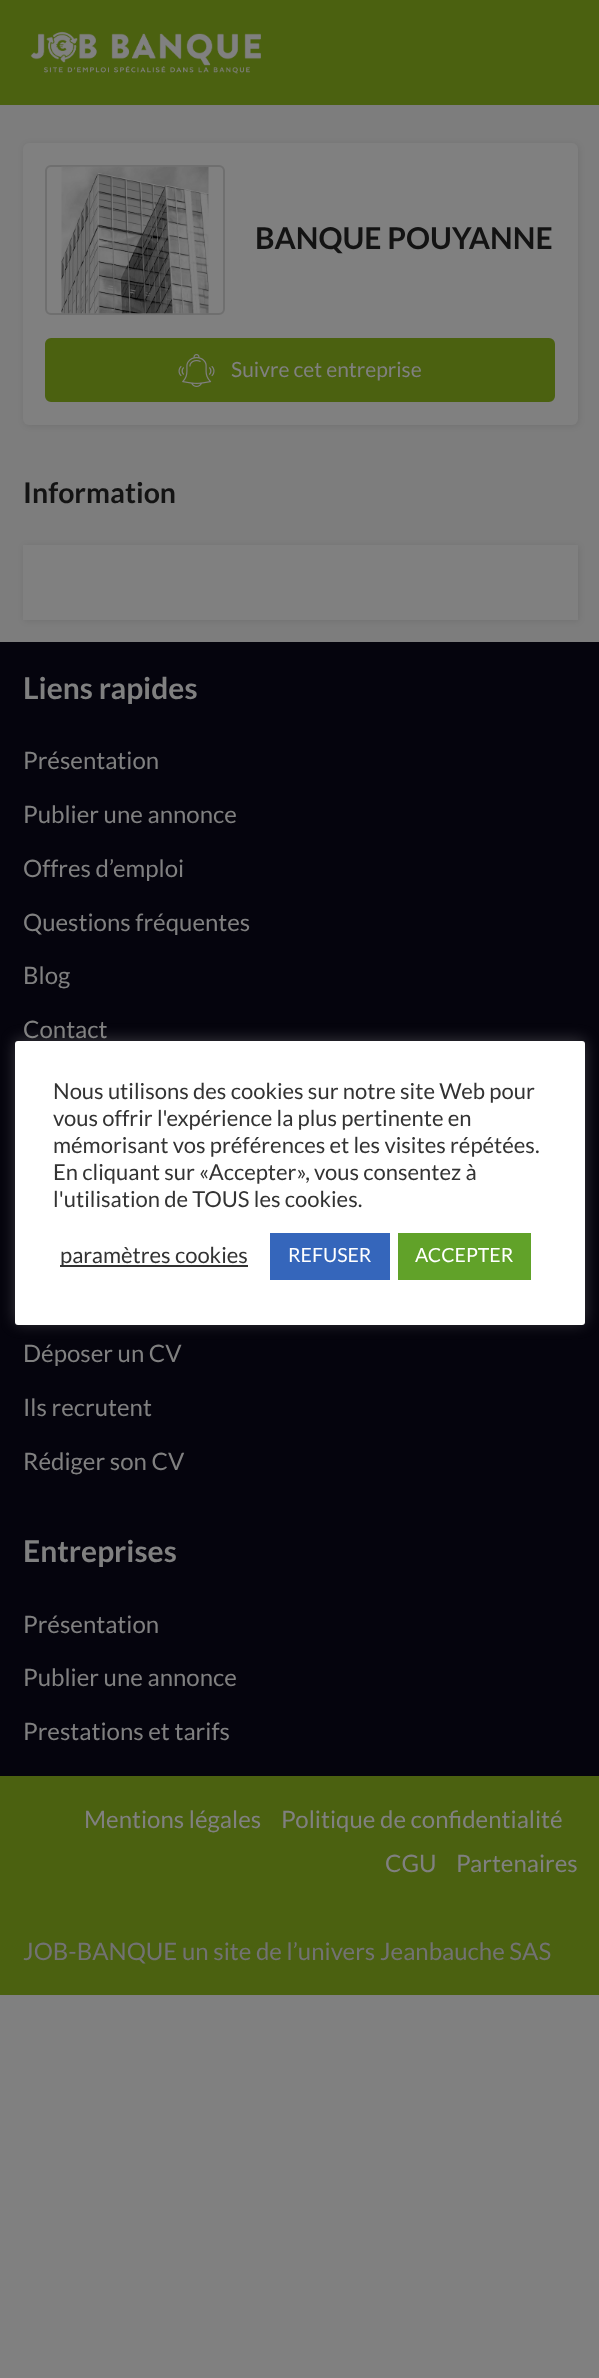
async function draw(canvas) {
  canvas.width = 599;
  canvas.height = 2378;
  const ctx = canvas.getContext('2d');
  ctx.miterLimit = 4;
  ctx.fontKerning = 'normal';
  function label(s, x, y, font, color) {
    ctx.font = font;
    ctx.fillStyle = color;
    ctx.fillText(s, x, y);
  }
  function rect(x, y, w, h, color) {
    ctx.fillStyle = color;
    ctx.fillRect(x, y, w, h);
  }
  function roundedRect(x, y, w, h, r, color) {
    ctx.fillStyle = color;
    ctx.beginPath();
    ctx.roundRect(x, y, w, h, r);
    ctx.fill();
  }
  async function image(src, x, y, w, h) {
    const img = new Image();
    img.src = src;
    await img.decode();
    ctx.drawImage(img, x, y, w, h);
  }

  rect(0, 0, 599, 2378, '#808080');
  rect(0, 0, 599, 105, '#4b6110');
  await image('assets/img1.png', 30, 31, 231, 43);
  rect(0, 105, 599, 537, '#7d7d7d');
  ctx.fillStyle = '#00000017';
  ctx.filter = 'blur(3px)';
  ctx.beginPath();
  ctx.roundRect(24, 144, 555, 282, 6);
  ctx.fill();
  ctx.filter = 'none';
  roundedRect(23, 143, 555, 282, 6, '#808080');
  ctx.beginPath();
  ctx.roundRect(46, 166, 178, 148, 5);
  ctx.strokeStyle = '#6f6f6f';
  ctx.lineWidth = 2;
  ctx.stroke();
  await image('assets/img2.png', 61, 166, 148, 148);
  label('BANQUE POUYANNE', 255, 249, 'bold 30px Lato', '#131313');
  ctx.fillStyle = '#4b6110';
  ctx.beginPath();
  ctx.roundRect(46, 339, 508, 62, 5);
  ctx.fill();
  ctx.strokeStyle = '#4b6110';
  ctx.stroke();
  await image('assets/img3.png', 178, 354, 37, 33);
  label('Suivre cet entreprise', 231, 377, '21px Lato', '#808080');
  label('Information', 23, 503, 'bold 28.5px Lato', '#131313');
  ctx.fillStyle = '#00000017';
  ctx.filter = 'blur(3px)';
  ctx.beginPath();
  ctx.rect(24, 546, 555, 75);
  ctx.fill();
  ctx.filter = 'none';
  rect(23, 545, 555, 75, '#808080');
  rect(0, 642, 599, 1134, '#05040d');
  label('Liens rapides', 23, 699, 'bold 30px Lato', '#808080');
  label('Présentation', 23, 769, '24px Lato', '#808080');
  label('Publier une annonce', 23, 823, '24px Lato', '#808080');
  label('Offres d’emploi', 23, 877, '24px Lato', '#808080');
  label('Questions fréquentes', 23, 931, '24px Lato', '#808080');
  label('Blog', 23, 984, '24px Lato', '#808080');
  label('Contact', 23, 1038, '24px Lato', '#808080');
  label('Déposer un CV', 23, 1362, '24px Lato', '#808080');
  label('Ils recrutent', 23, 1416, '24px Lato', '#808080');
  label('Rédiger son CV', 23, 1470, '24px Lato', '#808080');
  label('Entreprises', 23, 1562, 'bold 30px Lato', '#808080');
  label('Présentation', 23, 1633, '24px Lato', '#808080');
  label('Publier une annonce', 23, 1686, '24px Lato', '#808080');
  label('Prestations et tarifs', 23, 1740, '24px Lato', '#808080');
  rect(0, 1776, 599, 219, '#4b6110');
  label('Mentions légales', 84, 1828, '24px Lato', '#808080');
  label('Politique de confidentialité', 281, 1828, '24px Lato', '#808080');
  label('CGU', 385, 1872, '24px Lato', '#808080');
  label('Partenaires', 456, 1872, '24px Lato', '#808080');
  label('JOB-BANQUE un site de l’univers Jeanbauche SAS', 23, 1960, '24px Lato', '#727272');
  ctx.fillStyle = '#acabab4d';
  ctx.filter = 'blur(7.5px)';
  ctx.beginPath();
  ctx.roundRect(15, 1040, 570, 283, 3);
  ctx.fill();
  ctx.filter = 'none';
  roundedRect(15, 1041, 570, 284, 3, '#fff');
  label('Nous utilisons des cookies sur notre site Web pour', 53, 1099, '22px Lato', '#333');
  label('vous offrir l\'expérience la plus pertinente en', 53, 1126, '22px Lato', '#333');
  label('mémorisant vos préférences et les visites répétées.', 53, 1153, '22px Lato', '#333');
  label('En cliquant sur «Accepter», vous consentez à', 53, 1180, '22px Lato', '#333');
  label('l\'utilisation de TOUS les cookies.', 53, 1207, '22px Lato', '#333');
  rect(60, 1265, 188, 2, '#333');
  label('paramètres cookies', 60, 1263, '22px Lato', '#333');
  rect(270, 1233, 120, 47, '#3566bb');
  label('REFUSER', 288, 1262, '19.5px Lato', '#fff');
  rect(398, 1233, 133, 47, '#61a229');
  label('ACCEPTER', 415, 1262, '19.5px Lato', '#fff');
}

draw(document.querySelector('canvas'));
